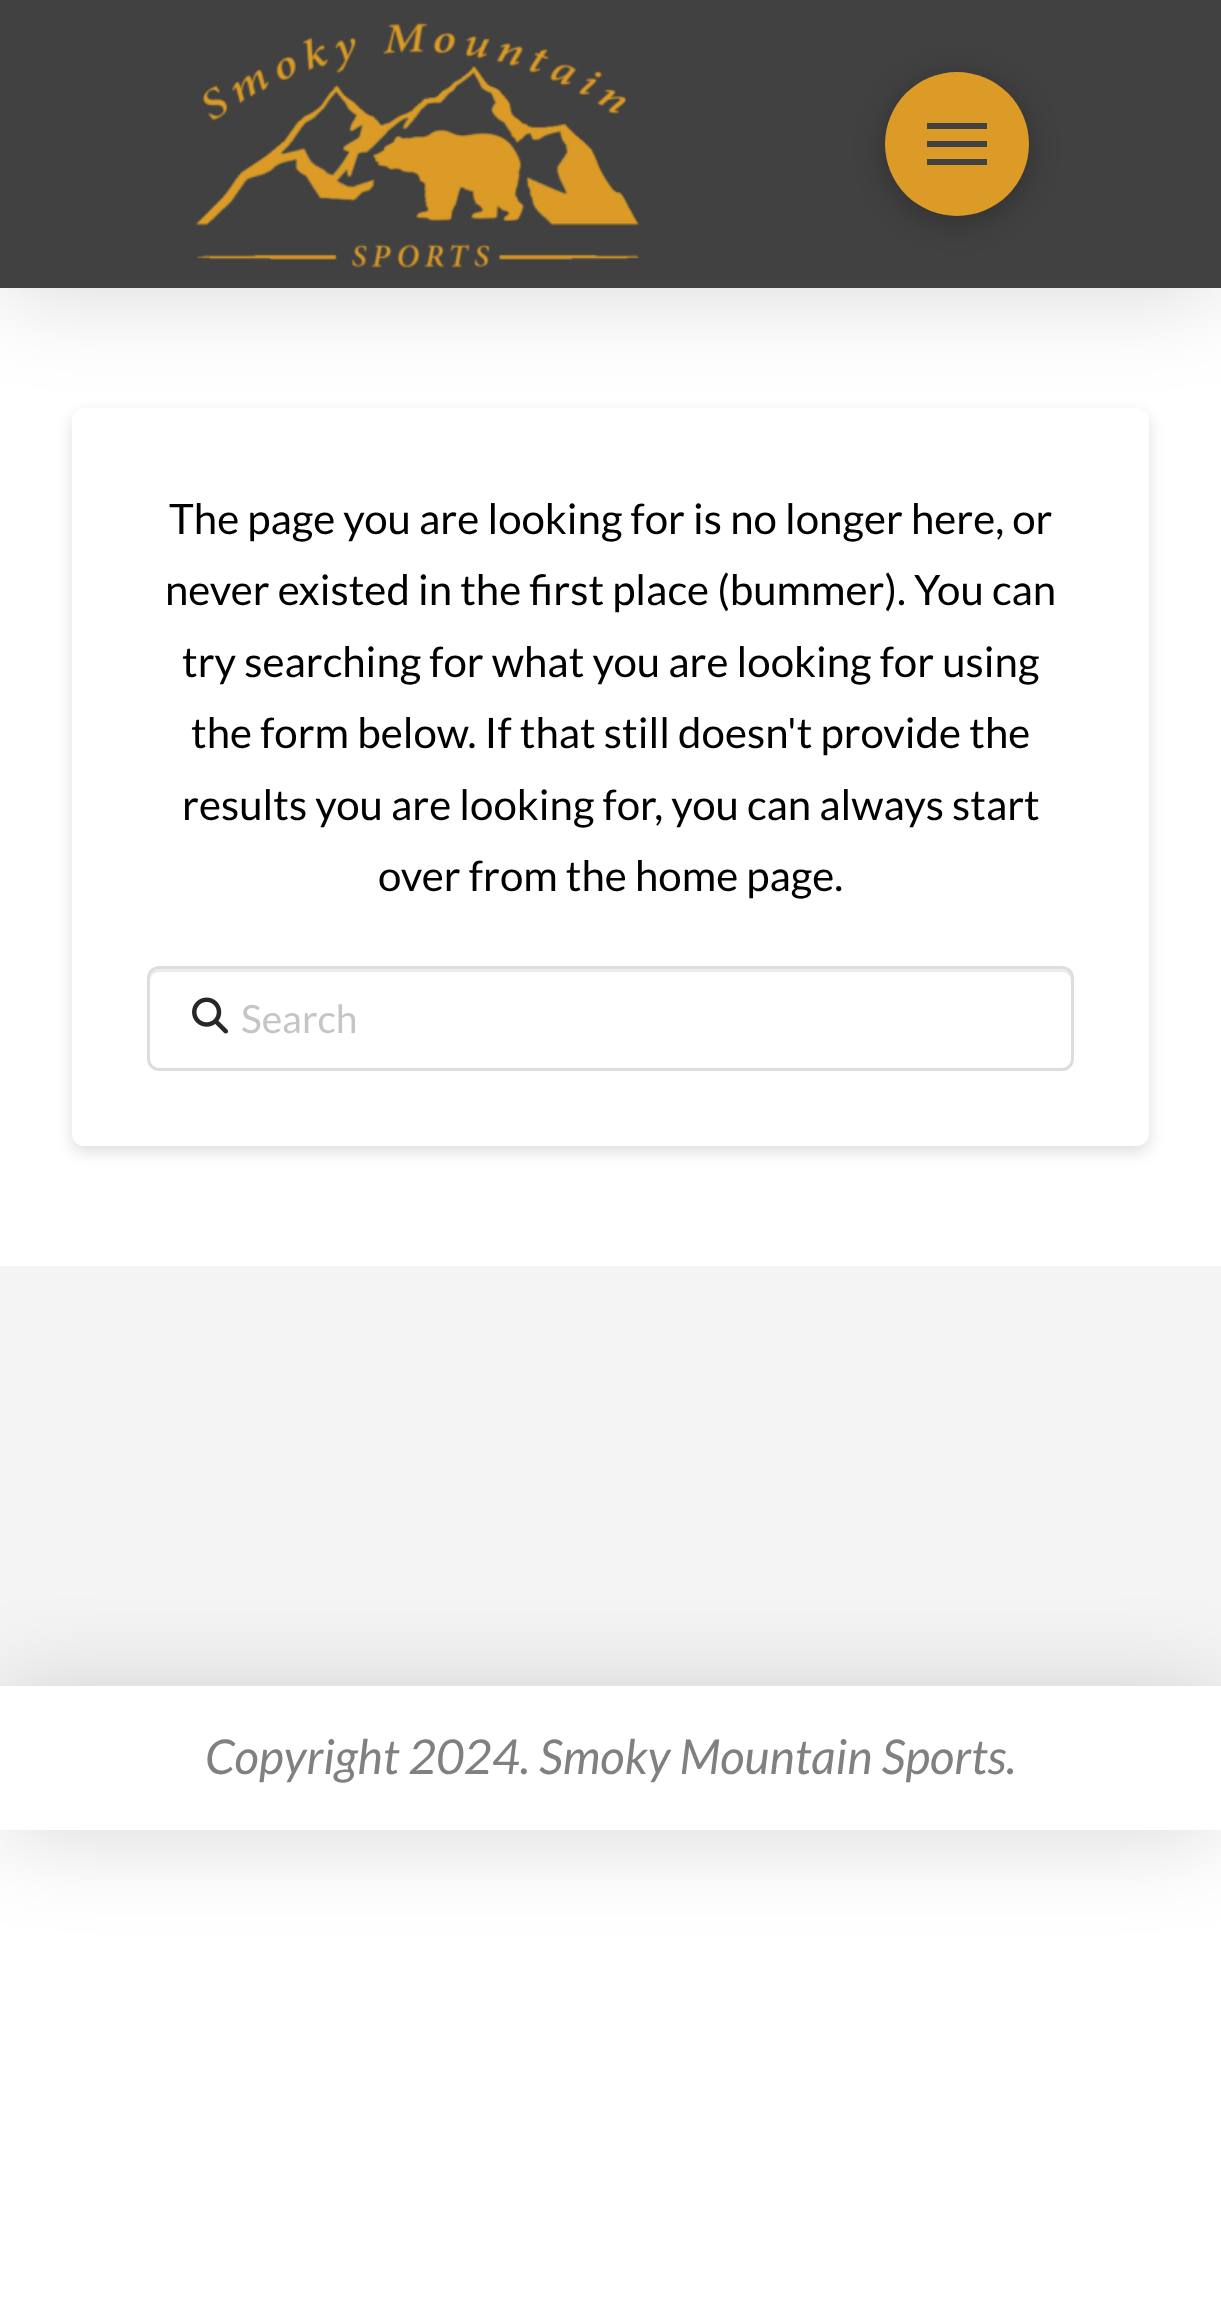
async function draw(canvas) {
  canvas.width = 1221;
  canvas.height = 2323;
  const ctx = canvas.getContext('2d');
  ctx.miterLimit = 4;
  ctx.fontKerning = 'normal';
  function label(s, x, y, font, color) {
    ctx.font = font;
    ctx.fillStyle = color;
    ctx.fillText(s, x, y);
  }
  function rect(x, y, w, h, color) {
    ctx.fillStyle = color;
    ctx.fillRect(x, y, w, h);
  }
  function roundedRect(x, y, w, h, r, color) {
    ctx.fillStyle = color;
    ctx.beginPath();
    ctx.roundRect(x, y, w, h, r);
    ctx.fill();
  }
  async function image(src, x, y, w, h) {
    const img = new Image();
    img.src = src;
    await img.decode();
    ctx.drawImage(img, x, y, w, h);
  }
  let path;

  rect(0, 0, 1221, 2323, '#fff');
  ctx.fillStyle = '#00000021';
  ctx.filter = 'blur(7.5px)';
  ctx.beginPath();
  ctx.roundRect(72, 414, 1077, 738, 12);
  ctx.fill();
  ctx.filter = 'none';
  roundedRect(72, 408, 1077, 738, 12, '#fff');
  ctx.fillStyle = '#00000026';
  ctx.filter = 'blur(48px)';
  ctx.beginPath();
  ctx.rect(0, 6, 1221, 288);
  ctx.fill();
  ctx.filter = 'none';
  rect(0, 0, 1221, 288, '#414141');
  await image('assets/img1.png', 195, 22, 445, 247);
  ctx.fillStyle = '#00000040';
  ctx.filter = 'blur(15.5px)';
  ctx.beginPath();
  ctx.roundRect(885, 78, 144, 144, 72);
  ctx.fill();
  ctx.filter = 'none';
  ctx.fillStyle = '#db9b26';
  ctx.beginPath();
  ctx.arc(957, 144, 72, 0, 2 * Math.PI);
  ctx.fill();
  rect(927, 123, 60, 6, '#414141');
  rect(927, 141, 60, 6, '#414141');
  rect(927, 159, 60, 6, '#414141');
  label('The page you are looking for is no longer here, or', 169, 534, '42px Lato', '#000');
  label('never existed in the first place (bummer). You can', 165, 605, '42px Lato', '#000');
  label('try searching for what you are looking for using', 182, 677, '42px Lato', '#000');
  label('the form below. If that still doesn\'t provide the', 191, 748, '42px Lato', '#000');
  label('results you are looking for, you can always start', 182, 820, '42px Lato', '#000');
  label('over from the home page.', 378, 891, '42px Lato', '#000');
  ctx.fillStyle = '#ececec';
  path = new Path2D('M159 972H1062C1067 972 1071 976 1071 981V978C1071 973 1067 969 1062 969H159C154 969 150 973 150 978V981C150 976 154 972 159 972Z');
  ctx.fill(path);
  ctx.beginPath();
  ctx.roundRect(148.5, 967.5, 924, 102, 10.5);
  ctx.strokeStyle = '#ddd';
  ctx.lineWidth = 3;
  ctx.stroke();
  await image('assets/img2.png', 192, 997, 36, 37);
  label('Search', 241, 1033, '39px Lato', '#c5c5c5');
  rect(0, 1266, 1221, 420, '#f4f4f4');
  ctx.save();
  path = new Path2D('M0 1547H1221V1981H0ZM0 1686H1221V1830H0Z');
  ctx.clip(path, 'evenodd');
  ctx.fillStyle = '#00000026';
  ctx.filter = 'blur(48px)';
  ctx.beginPath();
  ctx.rect(0, 1692, 1221, 144);
  ctx.fill();
  ctx.filter = 'none';
  ctx.restore();
  label('Copyright 2024. Smoky Mountain Sports.', 205, 1774, 'italic 48px Lato', '#808080');
}

draw(document.querySelector('canvas'));
